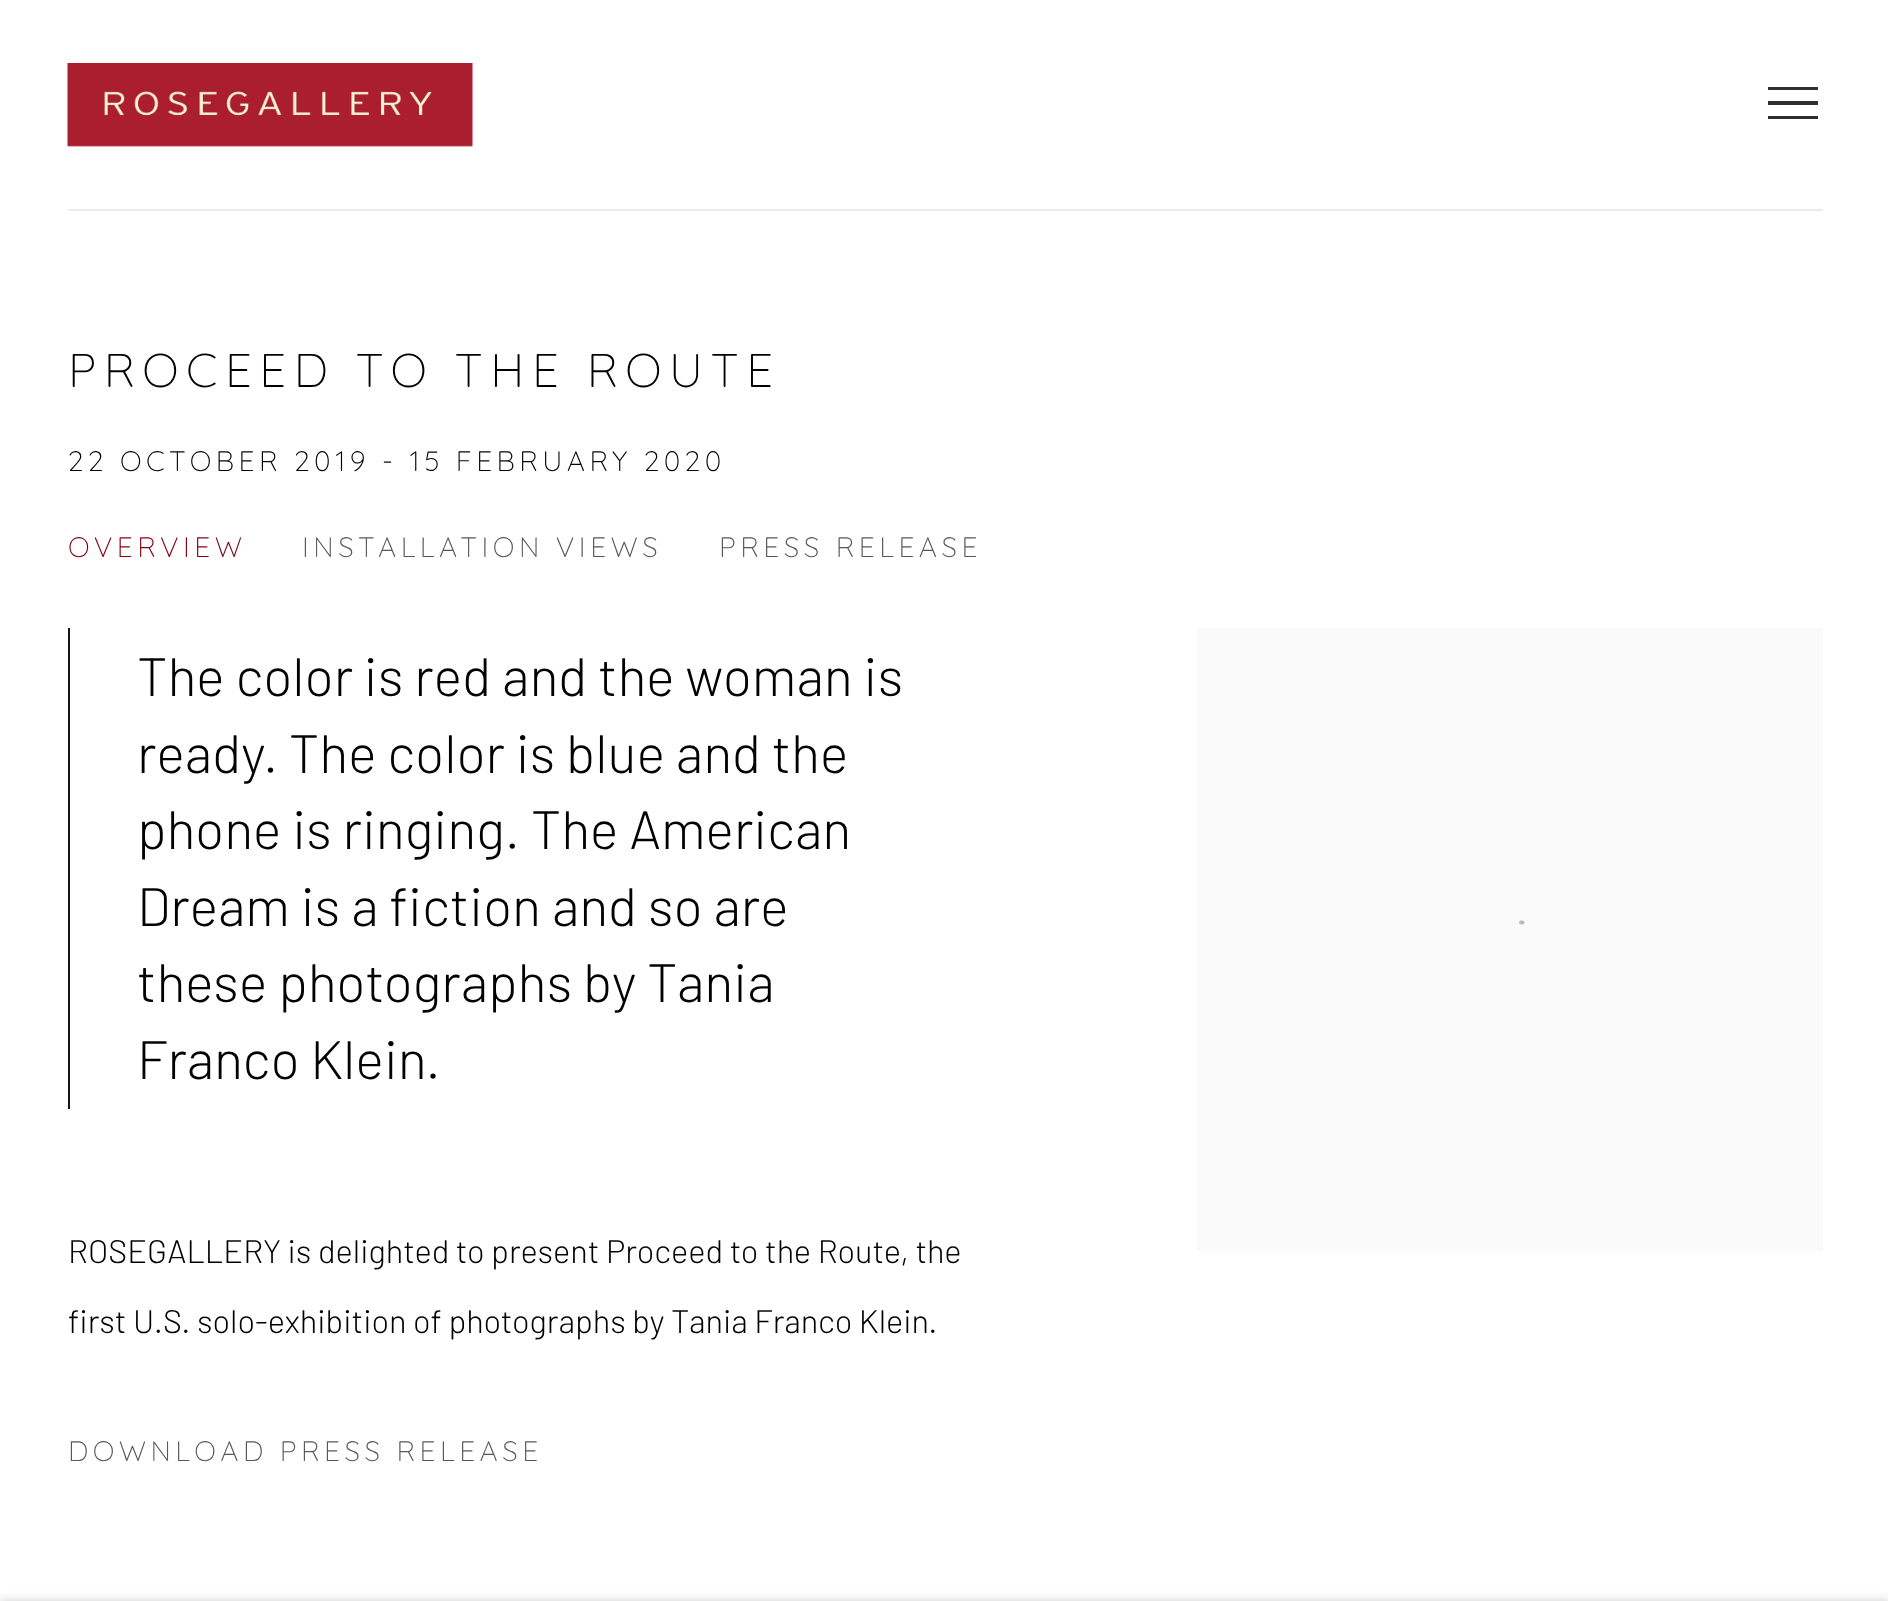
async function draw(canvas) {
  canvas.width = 1888;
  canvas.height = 1601;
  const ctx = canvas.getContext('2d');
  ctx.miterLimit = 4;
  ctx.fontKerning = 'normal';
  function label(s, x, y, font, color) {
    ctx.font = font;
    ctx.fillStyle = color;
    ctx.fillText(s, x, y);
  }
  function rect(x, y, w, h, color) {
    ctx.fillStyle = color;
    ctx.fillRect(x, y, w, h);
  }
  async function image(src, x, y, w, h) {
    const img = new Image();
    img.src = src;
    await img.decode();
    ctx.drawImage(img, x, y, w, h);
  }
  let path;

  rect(0, 0, 1888, 1601, '#fff');
  rect(68, 209, 1755, 2, '#ebebeb');
  await image('assets/img1.png', 67, 63, 406, 84);
  ctx.fillStyle = '#2f2f2f';
  path = new Path2D('M1768 119V116H1818V119ZM1768 105V101H1818V105ZM1768 90V87H1818V90Z');
  ctx.fill(path);
  ctx.letterSpacing = '7.6px';
  label('PROCEED TO THE ROUTE', 68, 387, '300 47.25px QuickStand', '#010101');
  ctx.letterSpacing = '4.5px';
  label('22 OCTOBER 2019 - 15 FEBRUARY 2020', 68, 471, '300 28.1px QuickStand', '#010101');
  label('OVERVIEW', 68, 557, '300 28.1px QuickStand', '#83000e');
  label('INSTALLATION VIEWS', 302, 557, '300 28.1px QuickStand', '#585858');
  label('PRESS RELEASE', 719, 557, '300 28.1px QuickStand', '#585858');
  rect(68, 628, 2, 481, '#151515');
  ctx.letterSpacing = '0px';
  label('The color is red and the woman is', 137, 696, '300 54px Barlow', '#010101');
  label('ready. The color is blue and the', 137, 773, '300 54px Barlow', '#010101');
  label('phone is ringing. The American', 137, 849, '300 54px Barlow', '#010101');
  label('Dream is a fiction and so are', 137, 926, '300 54px Barlow', '#010101');
  label('these photographs by Tania', 137, 1002, '300 54px Barlow', '#010101');
  label('Franco Klein.', 137, 1079, '300 54px Barlow', '#010101');
  label('ROSEGALLERY is delighted to present Proceed to the Route, the', 68, 1263, '300 32.6px Barlow', '#010101');
  label('first U.S. solo-exhibition of photographs by Tania Franco Klein.', 68, 1333, '300 32.6px Barlow', '#010101');
  ctx.letterSpacing = '4.5px';
  label('DOWNLOAD PRESS RELEASE', 68, 1461, '300 28.1px QuickStand', '#585858');
  rect(1197, 628, 626, 623, '#fafafa');
  path = new Path2D('M1521 922.5H1522.5');
  ctx.strokeStyle = '#bbb';
  ctx.lineWidth = 4;
  ctx.lineCap = 'round';
  ctx.stroke(path);
  ctx.fillStyle = '#0000003b';
  ctx.filter = 'blur(5.5px)';
  ctx.beginPath();
  ctx.rect(0, 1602, 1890, 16);
  ctx.fill();
  ctx.filter = 'none';
}

draw(document.querySelector('canvas'));
